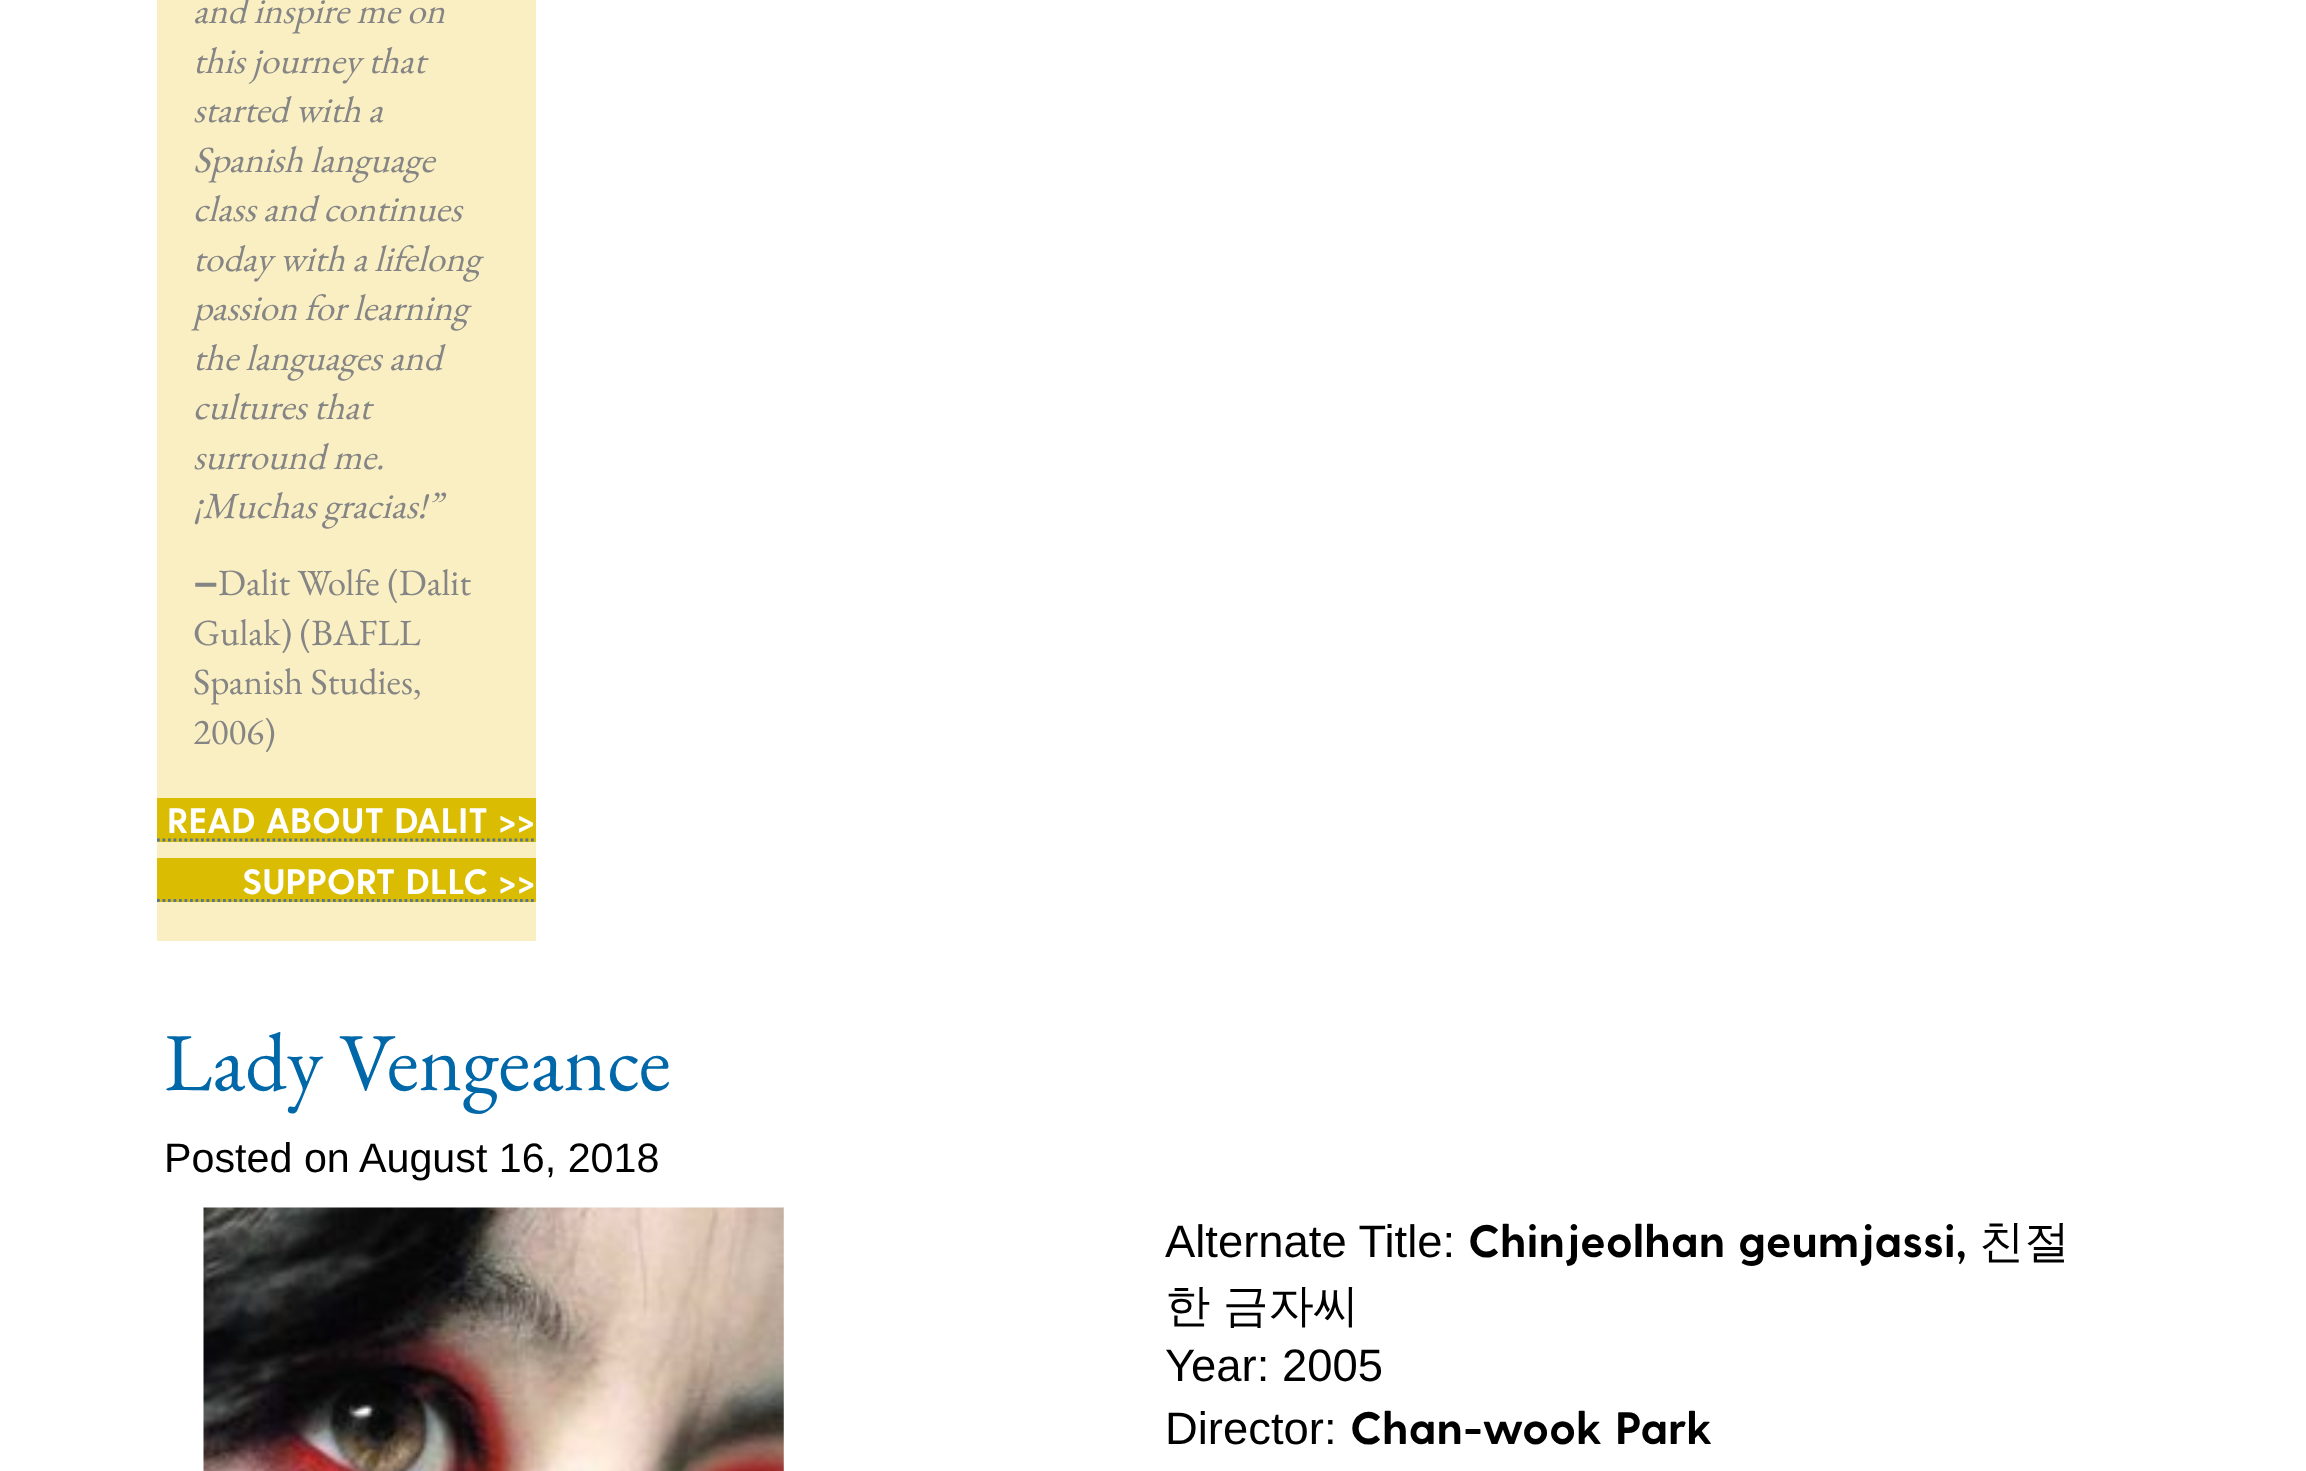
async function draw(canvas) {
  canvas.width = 2306;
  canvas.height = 1471;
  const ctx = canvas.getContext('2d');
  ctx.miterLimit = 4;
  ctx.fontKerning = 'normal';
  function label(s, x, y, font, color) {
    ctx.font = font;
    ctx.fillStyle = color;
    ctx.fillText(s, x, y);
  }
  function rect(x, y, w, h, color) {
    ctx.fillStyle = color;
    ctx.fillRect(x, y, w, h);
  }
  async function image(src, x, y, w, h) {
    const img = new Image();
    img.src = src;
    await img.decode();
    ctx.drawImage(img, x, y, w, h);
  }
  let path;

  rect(0, 0, 2306, 1471, '#fff');
  rect(157, 0, 379, 941, '#faefc2');
  label('and inspire me on', 193, 23, 'italic 37px EB Garamond', '#858585');
  label('this journey that', 193, 73, 'italic 37px EB Garamond', '#858585');
  label('started with a', 193, 122, 'italic 37px EB Garamond', '#858585');
  label('Spanish language', 193, 172, 'italic 37px EB Garamond', '#858585');
  label('class and continues', 193, 221, 'italic 37px EB Garamond', '#858585');
  label('today with a lifelong', 193, 271, 'italic 37px EB Garamond', '#858585');
  label('passion for learning', 193, 320, 'italic 37px EB Garamond', '#858585');
  label('the languages and', 193, 370, 'italic 37px EB Garamond', '#858585');
  label('cultures that', 193, 419, 'italic 37px EB Garamond', '#858585');
  label('surround me.', 193, 469, 'italic 37px EB Garamond', '#858585');
  label('¡Muchas gracias!”', 193, 518, 'italic 37px EB Garamond', '#858585');
  label('—', 193, 595, 'bold 37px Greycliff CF', '#858585');
  label('Dalit Wolfe (Dalit', 218, 595, '37px EB Garamond', '#858585');
  label('Gulak) (BAFLL', 193, 645, '37px EB Garamond', '#858585');
  label('Spanish Studies,', 193, 694, '37px EB Garamond', '#858585');
  label('2006)', 193, 744, '37px EB Garamond', '#858585');
  rect(157, 798, 379, 44, '#dabc02');
  path = new Path2D('M157 840H536');
  ctx.strokeStyle = '#557598';
  ctx.lineWidth = 2.8;
  ctx.setLineDash([2.75, 2.75]);
  ctx.stroke(path);
  label('READ ABOUT DALIT >>', 167, 833, 'bold 35.25px Greycliff CF', '#fff');
  rect(157, 858, 379, 44, '#dabc02');
  path = new Path2D('M157 900.5H536');
  ctx.stroke(path);
  label('SUPPORT DLLC >>', 242, 894, 'bold 35.25px Greycliff CF', '#fff');
  label('Lady Vengeance', 164, 1090, '82.5px EB Garamond', '#0068a9');
  label('Posted on August 16, 2018', 164, 1172, '41.25px Liberation Sans', '#000');
  await image('assets/img1.png', 203, 1207, 581, 264);
  label('Alternate Title:', 1165, 1257, '45.4px Liberation Sans', '#000');
  label('Chinjeolhan geumjassi,', 1468, 1257, 'bold 45.4px Greycliff CF', '#000');
  label('친절', 1979, 1257, '500 45.4px WenQuanYi Zen Hei', '#000');
  ctx.wordSpacing = '-1px';
  label('한 금자씨', 1165, 1321, '500 45.4px WenQuanYi Zen Hei', '#000');
  ctx.wordSpacing = '0px';
  label('Year: 2005', 1165, 1381, '45.4px Liberation Sans', '#000');
  label('Director:', 1165, 1444, '45.4px Liberation Sans', '#000');
  label('Chan-wook Park', 1350, 1444, 'bold 45.4px Greycliff CF', '#000');
}

draw(document.querySelector('canvas'));
